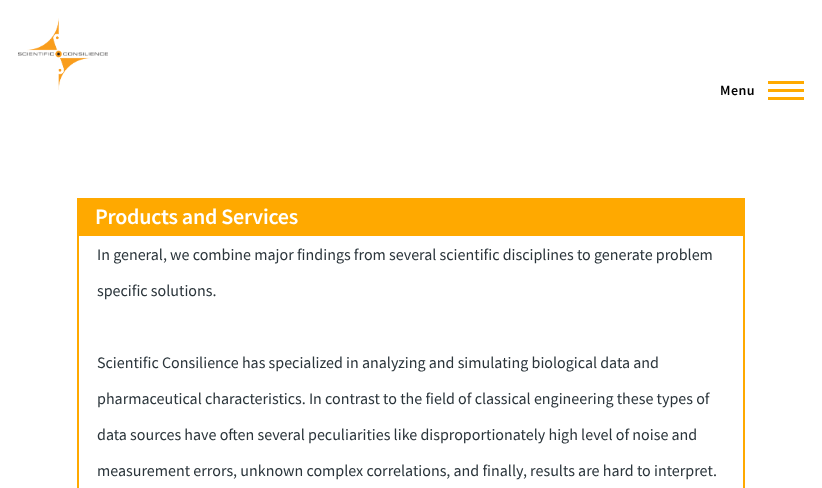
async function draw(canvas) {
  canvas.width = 822;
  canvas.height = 488;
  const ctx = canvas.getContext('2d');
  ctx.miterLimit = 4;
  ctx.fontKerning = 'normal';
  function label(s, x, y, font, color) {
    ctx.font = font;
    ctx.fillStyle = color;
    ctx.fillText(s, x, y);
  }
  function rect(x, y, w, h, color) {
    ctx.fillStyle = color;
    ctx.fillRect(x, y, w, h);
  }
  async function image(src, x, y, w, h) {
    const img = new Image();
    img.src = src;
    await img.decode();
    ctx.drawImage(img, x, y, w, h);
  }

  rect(0, 0, 822, 488, '#fff');
  await image('assets/img1.png', 18, 18, 90, 72);
  ctx.letterSpacing = '0.5px';
  label('Menu', 720, 95, '600 14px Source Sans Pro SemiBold', '#000');
  rect(768, 89, 36, 3, '#fa0');
  rect(768, 81, 36, 3, '#fa0');
  rect(768, 97, 36, 3, '#fa0');
  rect(77, 198, 668, 36, '#ffa900');
  ctx.letterSpacing = '-0.25px';
  label('Products and Services', 95, 224, '600 22px Source Sans Pro SemiBold', '#fff');
  ctx.strokeStyle = '#ffa900';
  ctx.lineWidth = 2;
  ctx.strokeRect(78, 235, 666, 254);
  ctx.letterSpacing = '0px';
  label('In general, we combine major findings from several scientific disciplines to generate problem', 97, 260, '16px Source Sans Pro', '#2b353b');
  label('specific solutions.', 97, 296, '16px Source Sans Pro', '#2b353b');
  label('Scientific Consilience has specialized in analyzing and simulating biological data and', 97, 368, '16px Source Sans Pro', '#2b353b');
  label('pharmaceutical characteristics. In contrast to the field of classical engineering these types of', 97, 404, '16px Source Sans Pro', '#2b353b');
  label('data sources have often several peculiarities like disproportionately high level of noise and', 97, 440, '16px Source Sans Pro', '#2b353b');
  label('measurement errors, unknown complex correlations, and finally, results are hard to interpret.', 97, 476, '16px Source Sans Pro', '#2b353b');
}

draw(document.querySelector('canvas'));
